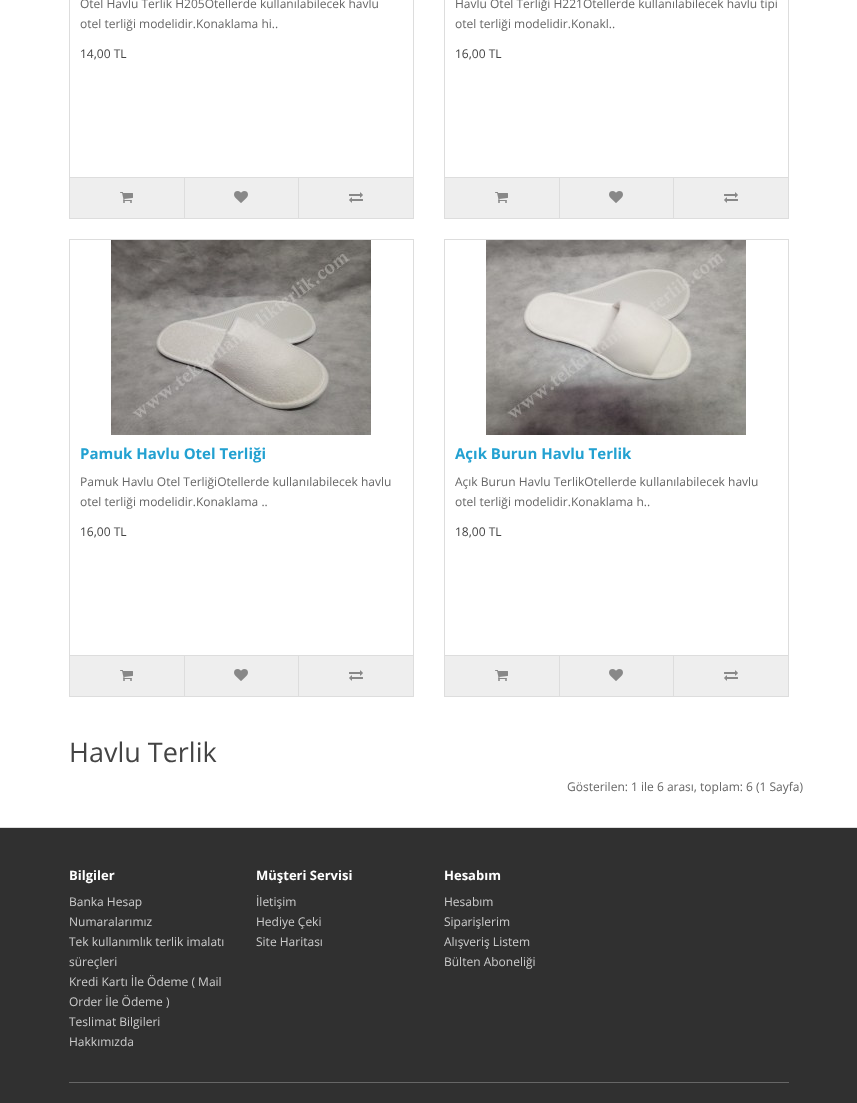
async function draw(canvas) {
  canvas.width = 857;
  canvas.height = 1103;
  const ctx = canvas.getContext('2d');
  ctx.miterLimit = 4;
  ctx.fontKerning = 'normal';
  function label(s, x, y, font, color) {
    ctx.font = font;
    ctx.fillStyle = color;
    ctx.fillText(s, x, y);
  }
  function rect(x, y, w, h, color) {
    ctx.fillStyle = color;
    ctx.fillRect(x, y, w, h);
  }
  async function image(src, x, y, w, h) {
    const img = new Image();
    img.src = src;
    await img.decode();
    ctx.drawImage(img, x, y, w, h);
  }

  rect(0, 0, 857, 1103, '#fff');
  ctx.strokeStyle = '#ddd';
  ctx.strokeRect(69.5, -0.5, 344, 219);
  label('Otel Havlu Terlik H205Otellerde kullanılabilecek havlu', 80, 8, '12px Open Sans', '#666');
  label('otel terliği modelidir.Konaklama hi..', 80, 28, '12px Open Sans', '#666');
  label('14,00 TL', 80, 58, '12px Open Sans', '#444');
  rect(70, 178, 343, 40, '#eee');
  rect(70, 177, 343, 1, '#ddd');
  await image('assets/img1.png', 120, 192, 13, 11);
  rect(184, 178, 1, 40, '#ddd');
  await image('assets/img2.png', 234, 191, 14, 12);
  rect(298, 178, 1, 40, '#ddd');
  await image('assets/img3.png', 349, 192, 14, 11);
  ctx.strokeRect(444.5, -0.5, 344, 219);
  label('Havlu Otel Terliği H221Otellerde kullanılabilecek havlu tipi', 455, 8, '12px Open Sans', '#666');
  label('otel terliği modelidir.Konakl..', 455, 28, '12px Open Sans', '#666');
  label('16,00 TL', 455, 58, '12px Open Sans', '#444');
  rect(445, 178, 343, 40, '#eee');
  rect(445, 177, 343, 1, '#ddd');
  await image('assets/img1.png', 495, 192, 13, 11);
  rect(559, 178, 1, 40, '#ddd');
  await image('assets/img2.png', 609, 191, 14, 12);
  rect(673, 178, 1, 40, '#ddd');
  await image('assets/img3.png', 724, 192, 14, 11);
  ctx.strokeRect(69.5, 239.5, 344, 457);
  await image('assets/img4.png', 111, 240, 260, 195);
  label('Pamuk Havlu Otel Terliği', 80, 459, 'bold 15px Open Sans', '#23a1d1');
  label('Pamuk Havlu Otel TerliğiOtellerde kullanılabilecek havlu', 80, 486, '12px Open Sans', '#666');
  label('otel terliği modelidir.Konaklama ..', 80, 506, '12px Open Sans', '#666');
  label('16,00 TL', 80, 536, '12px Open Sans', '#444');
  rect(70, 656, 343, 40, '#eee');
  rect(70, 655, 343, 1, '#ddd');
  await image('assets/img1.png', 120, 670, 13, 11);
  rect(184, 656, 1, 40, '#ddd');
  await image('assets/img2.png', 234, 669, 14, 12);
  rect(298, 656, 1, 40, '#ddd');
  await image('assets/img3.png', 349, 670, 14, 11);
  ctx.strokeRect(444.5, 239.5, 344, 457);
  await image('assets/img5.png', 486, 240, 260, 195);
  label('Açık Burun Havlu Terlik', 455, 459, 'bold 15px Open Sans', '#23a1d1');
  label('Açık Burun Havlu TerlikOtellerde kullanılabilecek havlu', 455, 486, '12px Open Sans', '#666');
  label('otel terliği modelidir.Konaklama h..', 455, 506, '12px Open Sans', '#666');
  label('18,00 TL', 455, 536, '12px Open Sans', '#444');
  rect(445, 656, 343, 40, '#eee');
  rect(445, 655, 343, 1, '#ddd');
  await image('assets/img1.png', 495, 670, 13, 11);
  rect(559, 656, 1, 40, '#ddd');
  await image('assets/img2.png', 609, 669, 14, 12);
  rect(673, 656, 1, 40, '#ddd');
  await image('assets/img3.png', 724, 670, 14, 11);
  label('Havlu Terlik', 69, 762, '27px Open Sans', '#444');
  label('Gösterilen: 1 ile 6 arası, toplam: 6 (1 Sayfa)', 567, 791, '12px Open Sans', '#666');
  rect(0, 828, 857, 275, '#303030');
  rect(0, 827, 857, 1, '#ddd');
  label('Bilgiler', 69, 880, 'bold 13px Open Sans', '#fff');
  label('Banka Hesap', 69, 906, '12px Open Sans', '#ccc');
  label('Numaralarımız', 69, 926, '12px Open Sans', '#ccc');
  label('Tek kullanımlık terlik imalatı', 69, 946, '12px Open Sans', '#ccc');
  label('süreçleri', 69, 966, '12px Open Sans', '#ccc');
  label('Kredi Kartı İle Ödeme ( Mail', 69, 986, '12px Open Sans', '#ccc');
  label('Order İle Ödeme )', 69, 1006, '12px Open Sans', '#ccc');
  label('Teslimat Bilgileri', 69, 1026, '12px Open Sans', '#ccc');
  label('Hakkımızda', 69, 1046, '12px Open Sans', '#ccc');
  label('Müşteri Servisi', 256, 880, 'bold 13px Open Sans', '#fff');
  label('İletişim', 256, 906, '12px Open Sans', '#ccc');
  label('Hediye Çeki', 256, 926, '12px Open Sans', '#ccc');
  label('Site Haritası', 256, 946, '12px Open Sans', '#ccc');
  label('Hesabım', 444, 880, 'bold 13px Open Sans', '#fff');
  label('Hesabım', 444, 906, '12px Open Sans', '#ccc');
  label('Siparişlerim', 444, 926, '12px Open Sans', '#ccc');
  label('Alışveriş Listem', 444, 946, '12px Open Sans', '#ccc');
  label('Bülten Aboneliği', 444, 966, '12px Open Sans', '#ccc');
  rect(69, 1082, 720, 1, '#666');
}

draw(document.querySelector('canvas'));
